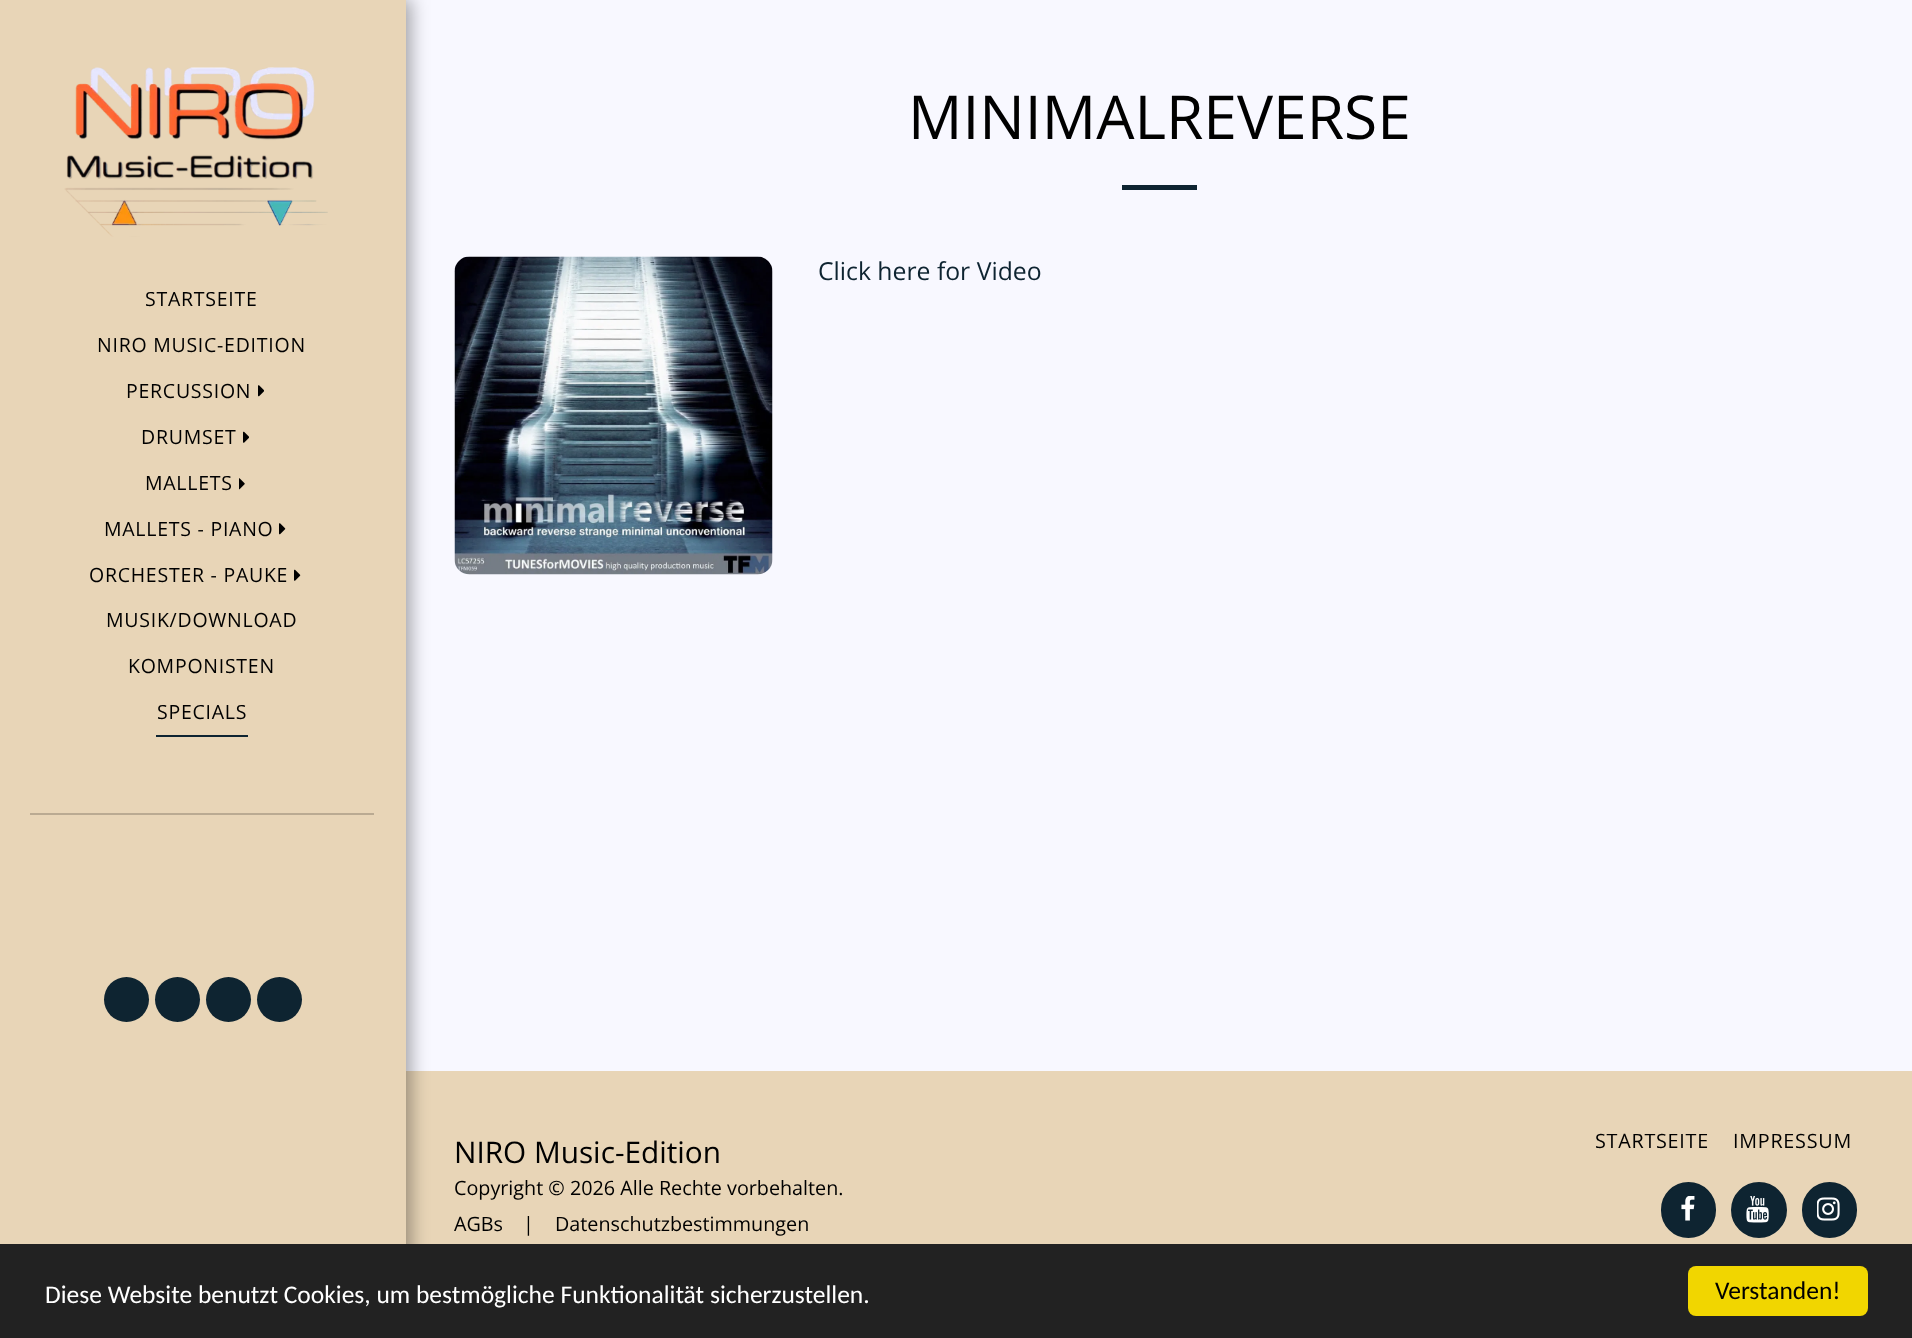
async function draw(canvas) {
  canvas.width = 1912;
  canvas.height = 1338;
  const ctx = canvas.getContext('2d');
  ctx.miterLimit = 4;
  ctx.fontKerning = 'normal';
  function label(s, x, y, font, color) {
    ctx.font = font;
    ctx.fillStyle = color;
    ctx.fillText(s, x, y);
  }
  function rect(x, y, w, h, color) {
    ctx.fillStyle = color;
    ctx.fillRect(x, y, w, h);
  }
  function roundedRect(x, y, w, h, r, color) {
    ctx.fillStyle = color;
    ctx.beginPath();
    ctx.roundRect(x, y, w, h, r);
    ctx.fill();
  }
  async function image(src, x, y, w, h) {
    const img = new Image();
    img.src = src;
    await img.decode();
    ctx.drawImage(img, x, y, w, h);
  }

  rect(0, 0, 1912, 1338, '#f8f8ff');
  rect(406, 1071, 1506, 173, '#e8d5b7');
  ctx.fillStyle = '#00000059';
  ctx.filter = 'blur(9px)';
  ctx.beginPath();
  ctx.rect(0, -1, 411, 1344);
  ctx.fill();
  ctx.filter = 'none';
  rect(0, 0, 406, 1244, '#e8d5b7');
  await image('assets/img1.png', 64, 67, 264, 170);
  ctx.letterSpacing = '0.75px';
  label('STARTSEITE', 145, 306, '19.5px Open Sans', '#000');
  label('NIRO MUSIC-EDITION', 97, 352, '19.5px Open Sans', '#000');
  label('PERCUSSION', 126, 398, '19.5px Open Sans', '#000');
  await image('assets/img2.png', 258, 385, 6, 12);
  label('DRUMSET', 141, 444, '19.5px Open Sans', '#000');
  await image('assets/img3.png', 243, 431, 6, 12);
  label('MALLETS', 145, 490, '19.5px Open Sans', '#000');
  await image('assets/img4.png', 239, 478, 6, 12);
  label('MALLETS - PIANO', 104, 536, '19.5px Open Sans', '#000');
  await image('assets/img5.png', 279, 523, 7, 12);
  label('ORCHESTER - PAUKE', 89, 582, '19.5px Open Sans', '#000');
  await image('assets/img6.png', 294, 569, 7, 12);
  label('MUSIK/DOWNLOAD', 106, 627, '19.5px Open Sans', '#000');
  label('KOMPONISTEN', 128, 673, '19.5px Open Sans', '#000');
  rect(156, 735, 92, 2, '#0e2431');
  label('SPECIALS', 157, 719, '19.5px Open Sans', '#000');
  rect(30, 813, 344, 2, '#baaa92');
  ctx.fillStyle = '#0e2431';
  ctx.beginPath();
  ctx.arc(126.5, 999.5, 22.5, 0, 2 * Math.PI);
  ctx.fill();
  ctx.beginPath();
  ctx.arc(177.5, 999.5, 22.5, 0, 2 * Math.PI);
  ctx.fill();
  ctx.beginPath();
  ctx.arc(228.5, 999.5, 22.5, 0, 2 * Math.PI);
  ctx.fill();
  ctx.beginPath();
  ctx.arc(279.5, 999.5, 22.5, 0, 2 * Math.PI);
  ctx.fill();
  ctx.letterSpacing = '0px';
  label('MINIMALREVERSE', 908, 139, '60.5px Open Sans', '#000');
  rect(1122, 185, 75, 5, '#0e2431');
  await image('assets/img7.png', 454, 256, 319, 319);
  label('Click here for Video', 818, 280, '24.75px Open Sans', '#0e2431');
  label('NIRO Music-Edition', 454, 1163, '29.75px Open Sans', '#000');
  label('Copyright © 2026 Alle Rechte vorbehalten.', 454, 1195, '19.75px Open Sans', '#000');
  label('AGBs', 454, 1231, '19.75px Open Sans', '#000');
  label('|', 523, 1231, '19.75px Open Sans', '#000');
  label('Datenschutzbestimmungen', 555, 1231, '19.75px Open Sans', '#000');
  ctx.letterSpacing = '0.75px';
  label('STARTSEITE', 1595, 1148, '19.75px Open Sans', '#000');
  label('IMPRESSUM', 1733, 1148, '19.75px Open Sans', '#000');
  ctx.fillStyle = '#0e2431';
  ctx.beginPath();
  ctx.roundRect(1662, 1183, 53, 54, 26.5);
  ctx.fill();
  ctx.strokeStyle = '#0e2431';
  ctx.lineWidth = 2;
  ctx.stroke();
  await image('assets/img8.png', 1681, 1196, 14, 25);
  ctx.beginPath();
  ctx.arc(1759, 1210, 27, 0, 2 * Math.PI);
  ctx.fill();
  ctx.stroke();
  await image('assets/img9.png', 1746, 1196, 23, 27);
  ctx.beginPath();
  ctx.roundRect(1803, 1183, 53, 54, 26.5);
  ctx.fill();
  ctx.stroke();
  await image('assets/img10.png', 1817, 1197, 23, 24);
  rect(0, 1244, 1912, 94, '#222');
  ctx.letterSpacing = '0px';
  label('Diese Website benutzt Cookies, um bestmögliche Funktionalität sicherzustellen.', 45, 1303, '25.5px Carlito', '#fff');
  roundedRect(1688, 1266, 180, 50, 8, '#f1d600');
  label('Verstanden!', 1715, 1299, '25.5px Carlito', '#000');
}

draw(document.querySelector('canvas'));
